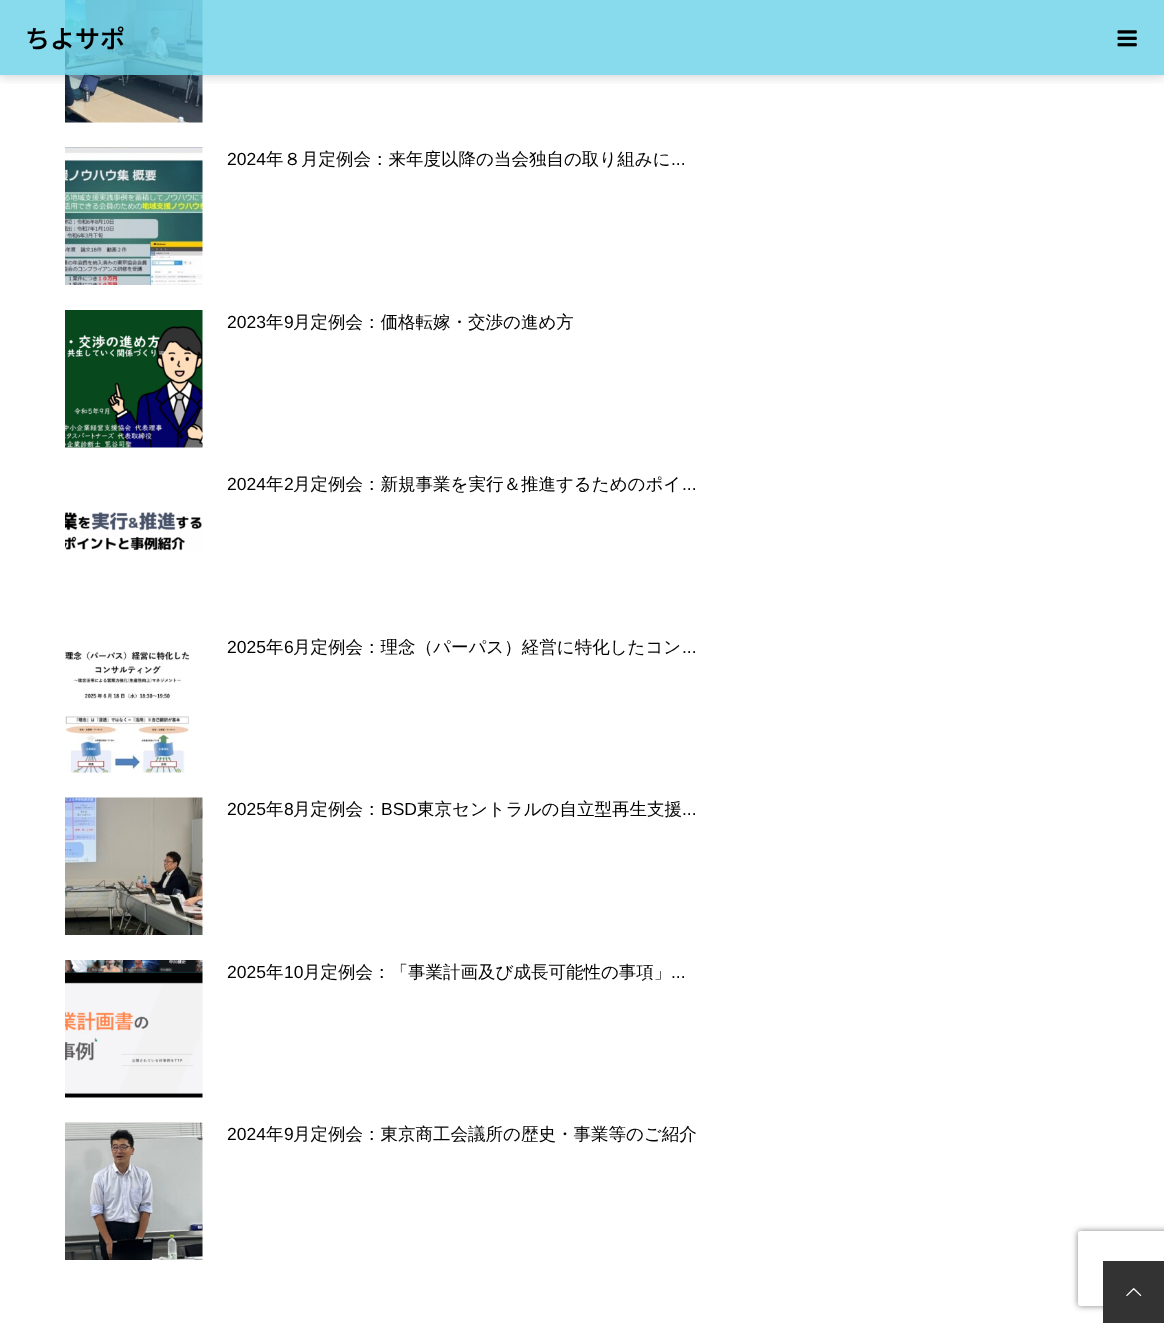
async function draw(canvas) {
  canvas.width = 1164;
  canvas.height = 1323;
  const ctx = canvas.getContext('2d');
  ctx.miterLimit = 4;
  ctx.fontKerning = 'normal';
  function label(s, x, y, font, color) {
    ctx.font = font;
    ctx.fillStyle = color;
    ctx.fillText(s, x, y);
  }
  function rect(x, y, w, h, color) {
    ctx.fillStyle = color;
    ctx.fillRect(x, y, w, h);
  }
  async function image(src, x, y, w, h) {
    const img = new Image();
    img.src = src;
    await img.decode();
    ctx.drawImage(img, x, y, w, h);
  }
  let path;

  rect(0, 0, 1164, 1323, '#fff');
  await image('assets/img2.png', 65, 0, 138, 123);
  ctx.save();
  ctx.beginPath();
  ctx.rect(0, 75, 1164, 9);
  ctx.clip();
  ctx.fillStyle = '#00000033';
  ctx.filter = 'blur(6px)';
  ctx.beginPath();
  ctx.rect(-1, -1, 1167, 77);
  ctx.fill();
  ctx.filter = 'none';
  ctx.restore();
  rect(0, 0, 1164, 75, '#69d2e7cc');
  label('ちよサポ', 25, 48, '600 25px Noto Sans JP', '#000');
  await image('assets/img1.png', 1117, 30, 20, 17);
  await image('assets/img3.png', 65, 147, 138, 138);
  label('2024', 227, 165, '17.5px Liberation Sans', '#000');
  label('年８月定例会：来年度以降の当会独自の取り組みに', 266, 165, '500 17.5px WenQuanYi Zen Hei', '#000');
  label('...', 671, 165, '17.5px Liberation Sans', '#000');
  await image('assets/img4.png', 65, 310, 138, 138);
  label('2023', 227, 328, '17.5px Liberation Sans', '#000');
  label('年', 266, 328, '500 17.5px WenQuanYi Zen Hei', '#000');
  label('9', 284, 328, '17.5px Liberation Sans', '#000');
  label('月定例会：価格転嫁・交渉の進め方', 293, 328, '500 17.5px WenQuanYi Zen Hei', '#000');
  label('2024', 227, 490, '17.5px Liberation Sans', '#000');
  label('年', 266, 490, '500 17.5px WenQuanYi Zen Hei', '#000');
  label('2', 284, 490, '17.5px Liberation Sans', '#000');
  label('月定例会：新規事業を実行＆推進するためのポイ', 293, 490, '500 17.5px WenQuanYi Zen Hei', '#000');
  label('...', 682, 490, '17.5px Liberation Sans', '#000');
  await image('assets/img5.png', 65, 512, 137, 39);
  label('2025', 227, 653, '17.5px Liberation Sans', '#000');
  label('年', 266, 653, '500 17.5px WenQuanYi Zen Hei', '#000');
  label('6', 284, 653, '17.5px Liberation Sans', '#000');
  label('月定例会：理念（パーパス）経営に特化したコン', 293, 653, '500 17.5px WenQuanYi Zen Hei', '#000');
  label('...', 682, 653, '17.5px Liberation Sans', '#000');
  await image('assets/img6.png', 65, 650, 125, 123);
  await image('assets/img7.png', 65, 797, 138, 138);
  label('2025', 227, 815, '17.5px Liberation Sans', '#000');
  label('年', 266, 815, '500 17.5px WenQuanYi Zen Hei', '#000');
  label('8', 284, 815, '17.5px Liberation Sans', '#000');
  label('月定例会：', 293, 815, '500 17.5px WenQuanYi Zen Hei', '#000');
  label('BSD', 381, 815, '17.5px Liberation Sans', '#000');
  label('東京セントラルの自立型再生支援', 417, 815, '500 17.5px WenQuanYi Zen Hei', '#000');
  label('...', 682, 815, '17.5px Liberation Sans', '#000');
  await image('assets/img8.png', 65, 960, 138, 138);
  label('2025', 227, 978, '17.5px Liberation Sans', '#000');
  label('年', 266, 978, '500 17.5px WenQuanYi Zen Hei', '#000');
  label('10', 284, 978, '17.5px Liberation Sans', '#000');
  label('月定例会：「事業計画及び成長可能性の事項」', 303, 978, '500 17.5px WenQuanYi Zen Hei', '#000');
  label('...', 671, 978, '17.5px Liberation Sans', '#000');
  await image('assets/img9.png', 65, 1122, 138, 138);
  label('2024', 227, 1140, '17.5px Liberation Sans', '#000');
  label('年', 266, 1140, '500 17.5px WenQuanYi Zen Hei', '#000');
  label('9', 284, 1140, '17.5px Liberation Sans', '#000');
  label('月定例会：東京商工会議所の歴史・事業等のご紹介', 293, 1140, '500 17.5px WenQuanYi Zen Hei', '#000');
  ctx.save();
  path = new Path2D('M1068 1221H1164V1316H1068ZM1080.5 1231H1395.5C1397 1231 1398 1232 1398 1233.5V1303.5C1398 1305 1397 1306 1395.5 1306H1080.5C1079 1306 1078 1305 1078 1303.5V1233.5C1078 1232 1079 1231 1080.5 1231Z');
  ctx.clip(path, 'evenodd');
  ctx.fillStyle = '#808080';
  ctx.filter = 'blur(3px)';
  ctx.beginPath();
  ctx.roundRect(1078, 1231, 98, 75, 2.5);
  ctx.fill();
  ctx.filter = 'none';
  ctx.restore();
  rect(1103, 1261, 61, 62, '#333');
  await image('assets/img10.png', 1126, 1288, 16, 8);
}

draw(document.querySelector('canvas'));
